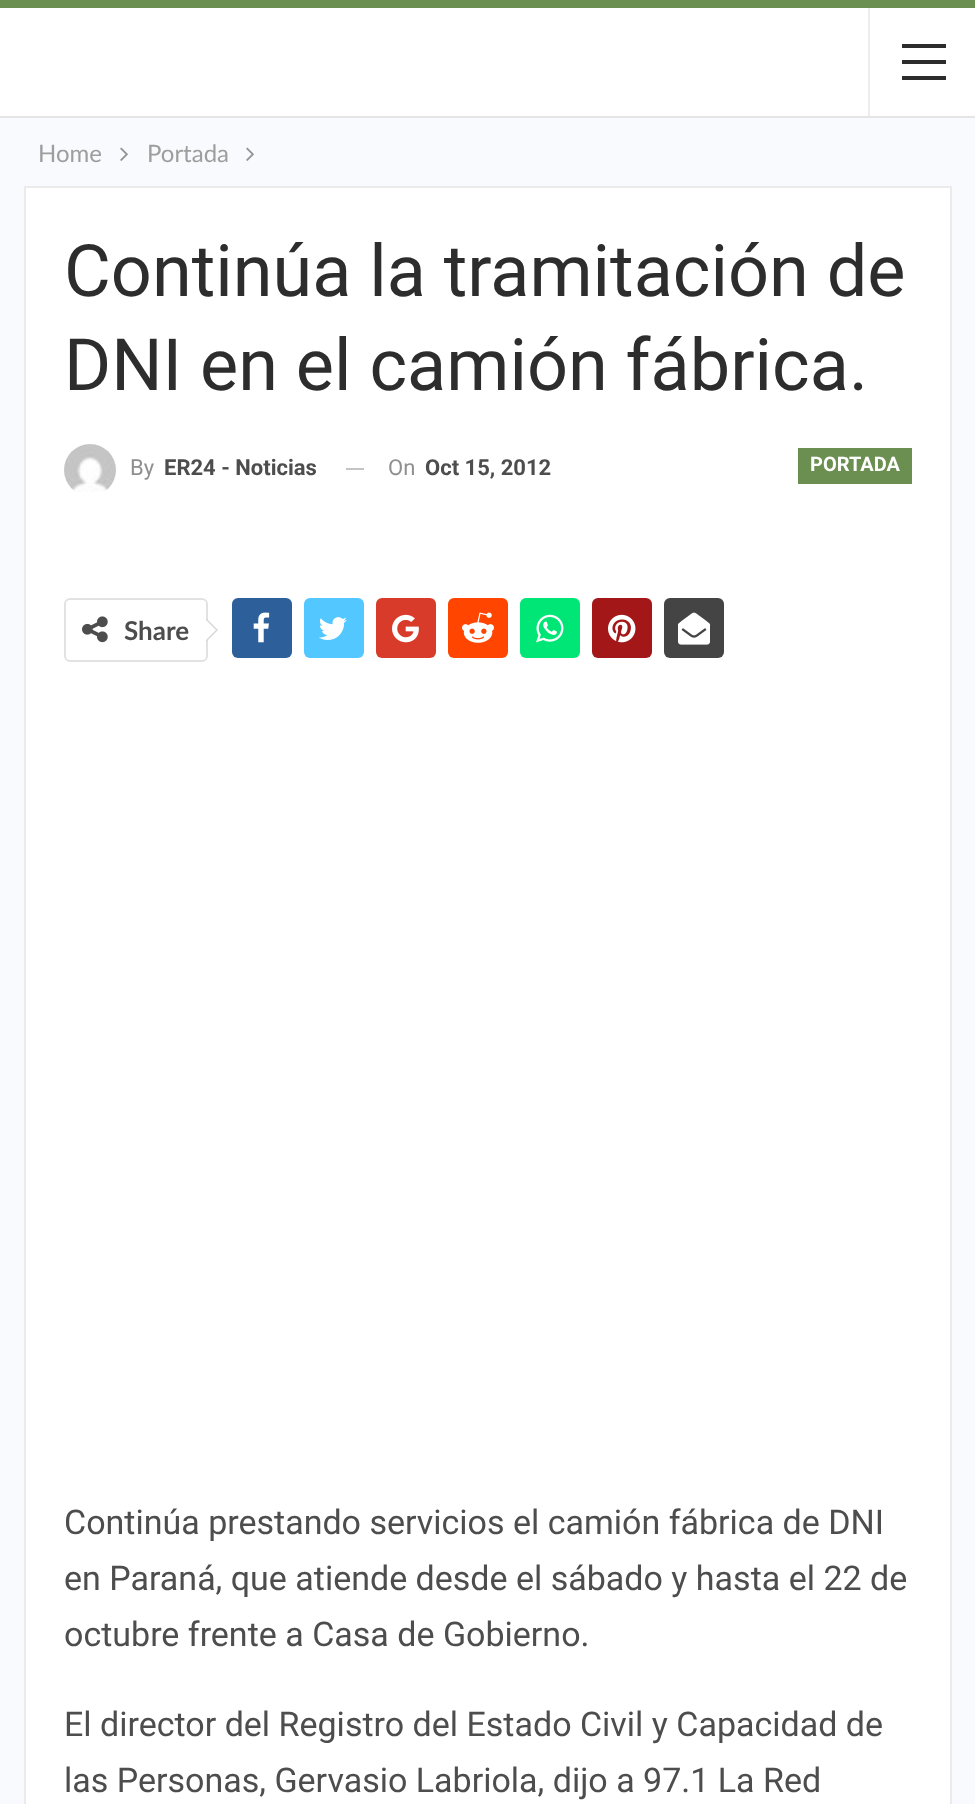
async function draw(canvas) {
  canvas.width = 975;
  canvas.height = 1804;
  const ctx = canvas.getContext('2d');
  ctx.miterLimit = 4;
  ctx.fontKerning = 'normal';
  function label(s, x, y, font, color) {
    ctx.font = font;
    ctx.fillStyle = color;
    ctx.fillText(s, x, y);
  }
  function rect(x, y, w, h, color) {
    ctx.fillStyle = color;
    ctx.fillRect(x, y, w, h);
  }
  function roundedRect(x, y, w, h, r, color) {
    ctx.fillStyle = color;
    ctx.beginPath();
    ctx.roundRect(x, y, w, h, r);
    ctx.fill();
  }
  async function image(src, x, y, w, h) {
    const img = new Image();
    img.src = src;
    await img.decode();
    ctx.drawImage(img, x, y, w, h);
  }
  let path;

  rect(0, 0, 975, 1804, '#6b8f50');
  rect(0, 118, 975, 1686, '#f9fafd');
  rect(0, 8, 975, 108, '#fff');
  rect(0, 116, 975, 2, '#e5e5e5');
  rect(868, 8, 2, 108, '#ededed');
  rect(902, 60, 44, 4, '#2c2c2c');
  rect(902, 44, 44, 4, '#2c2c2c');
  rect(902, 76, 44, 4, '#2c2c2c');
  label('Home', 38, 162, '24px Lato', '#9e9e9e');
  await image('assets/img1.png', 120, 147, 8, 14);
  label('Portada', 147, 162, '24px Lato', '#9e9e9e');
  await image('assets/img1.png', 246, 147, 8, 14);
  ctx.fillStyle = '#fff';
  ctx.beginPath();
  ctx.rect(25, 187, 926, 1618);
  ctx.fill();
  ctx.strokeStyle = '#ebebeb';
  ctx.lineWidth = 2;
  ctx.stroke();
  label('Continúa la tramitación de', 64, 296, '72px Roboto', '#2d2d2d');
  label('DNI en el camión fábrica.', 64, 390, '72px Roboto', '#2d2d2d');
  await image('assets/img2.png', 64, 444, 52, 48);
  label('By', 130, 475, '22px Roboto', '#8f8f8f');
  label('ER24 - Noticias', 164, 475, 'bold 22px Roboto', '#4d4d4d');
  rect(346, 468, 18, 2, '#c4c4c4');
  label('On', 388, 475, '22px Roboto', '#8f8f8f');
  label('Oct 15, 2012', 425, 475, 'bold 22px Roboto', '#4d4d4d');
  rect(798, 448, 114, 36, '#6b8f50');
  label('PORTADA', 810, 471, 'bold 20px Roboto', '#fff');
  ctx.beginPath();
  ctx.roundRect(65, 599, 142, 62, 5);
  ctx.strokeStyle = '#e2e2e2';
  ctx.stroke();
  await image('assets/img3.png', 82, 616, 26, 27);
  label('Share', 124, 640, 'bold 26px Lato', '#4d4d4d');
  ctx.fillStyle = '#d7d7d7';
  path = new Path2D('M206 642V618L218 630Z');
  ctx.fill(path);
  ctx.fillStyle = '#fff';
  path = new Path2D('M206 640V620L216 630Z');
  ctx.fill(path);
  roundedRect(232, 598, 60, 60, 6, '#2d5f9a');
  await image('assets/img4.png', 253, 612, 17, 31);
  roundedRect(304, 598, 60, 60, 6, '#53c7ff');
  await image('assets/img5.png', 319, 617, 28, 23);
  roundedRect(376, 598, 60, 60, 6, '#d93b2b');
  await image('assets/img6.png', 392, 614, 27, 29);
  roundedRect(448, 598, 60, 60, 6, '#ff4500');
  await image('assets/img7.png', 462, 612, 32, 31);
  roundedRect(520, 598, 60, 60, 6, '#00e676');
  await image('assets/img8.png', 536, 614, 28, 29);
  roundedRect(592, 598, 60, 60, 6, '#a41719');
  await image('assets/img9.png', 608, 614, 28, 29);
  roundedRect(664, 598, 60, 60, 6, '#444');
  await image('assets/img10.png', 678, 612, 32, 33);
  label('Continúa prestando servicios el camión fábrica de DNI', 64, 1534, '34px Roboto', '#4d4d4d');
  label('en Paraná, que atiende desde el sábado y hasta el 22 de', 64, 1590, '34px Roboto', '#4d4d4d');
  label('octubre frente a Casa de Gobierno.', 64, 1646, '34px Roboto', '#4d4d4d');
  label('El director del Registro del Estado Civil y Capacidad de', 64, 1736, '34px Roboto', '#4d4d4d');
  label('las Personas, Gervasio Labriola, dijo a 97.1 La Red', 64, 1792, '34px Roboto', '#4d4d4d');
}

draw(document.querySelector('canvas'));
